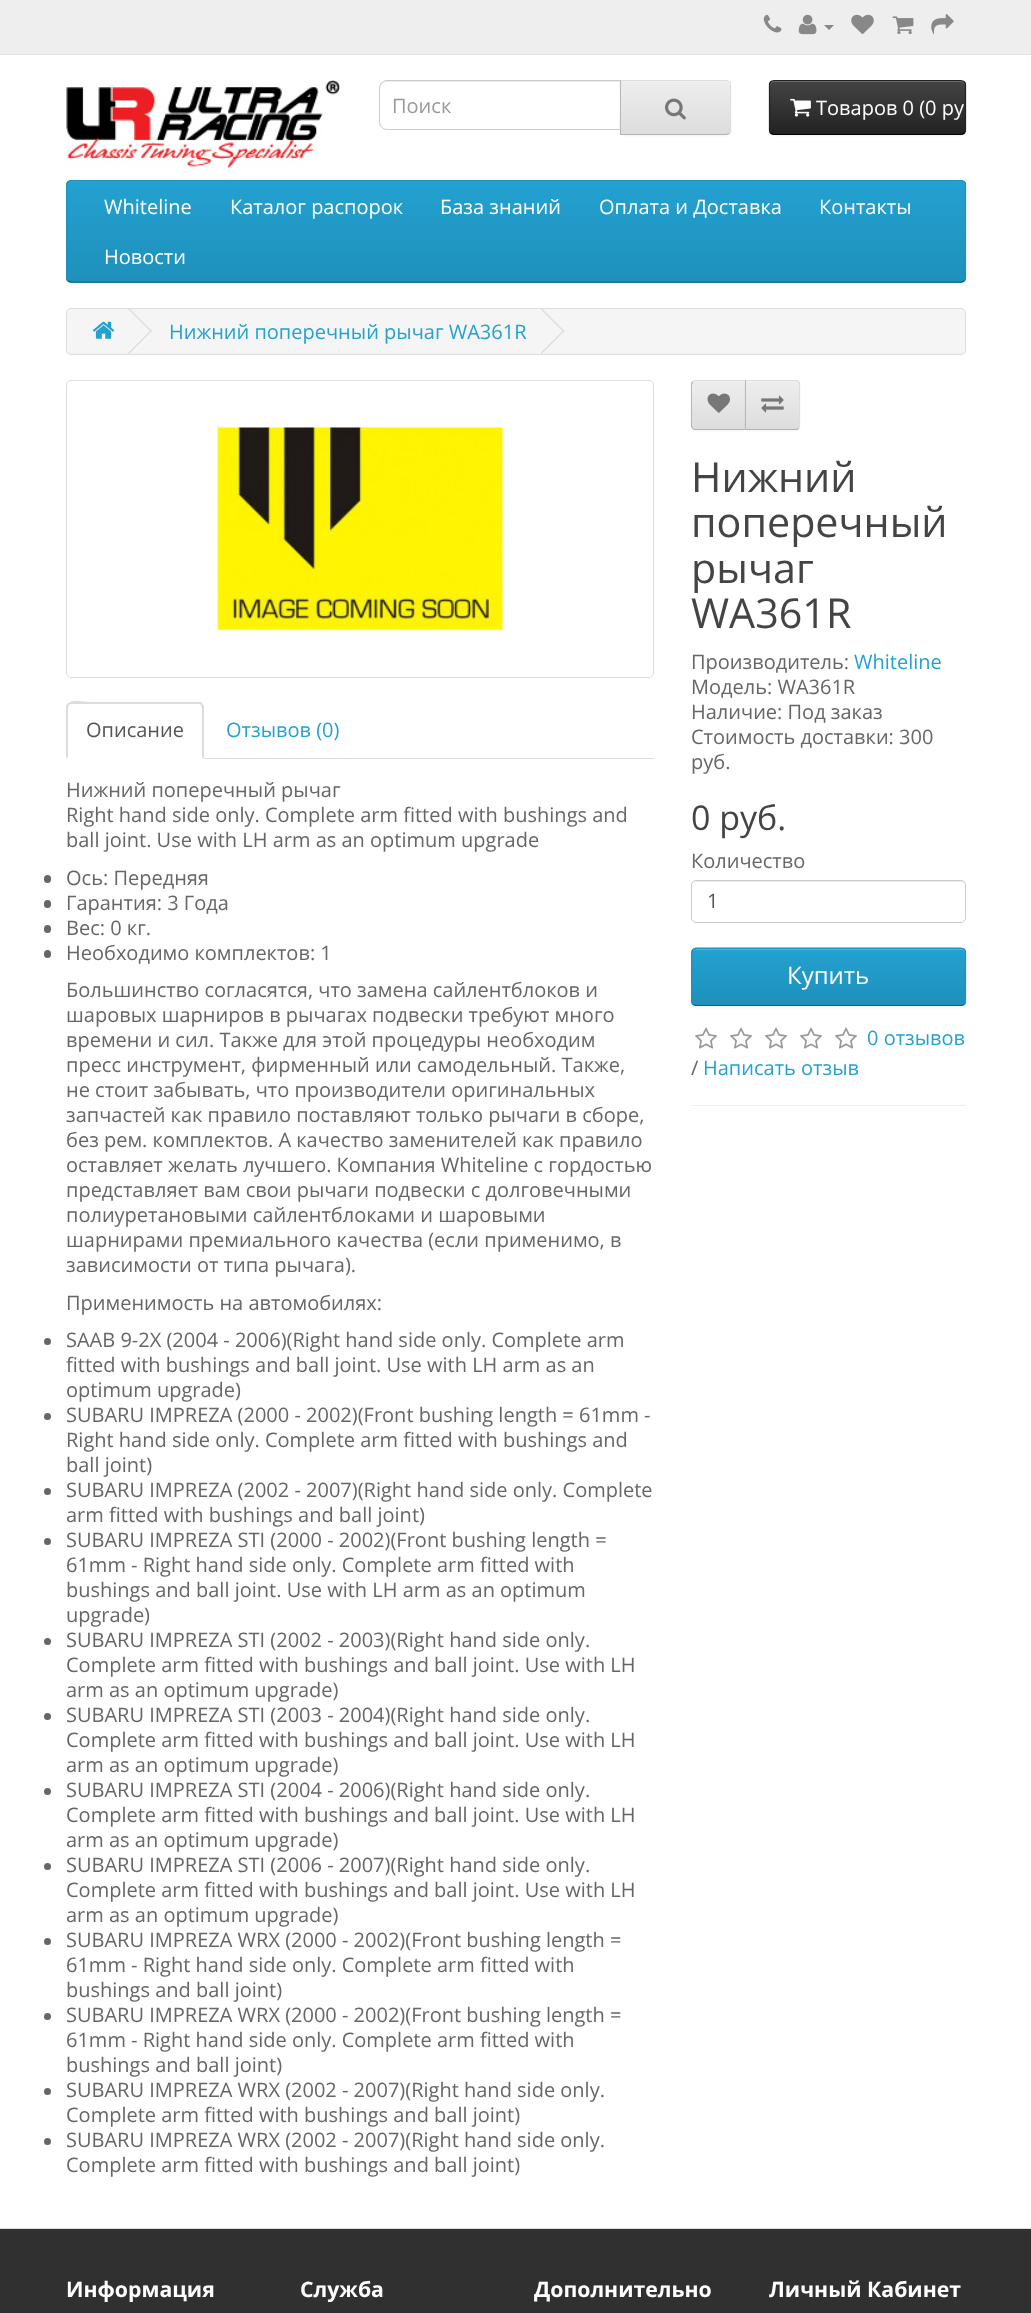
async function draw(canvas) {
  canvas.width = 1031;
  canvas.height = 2313;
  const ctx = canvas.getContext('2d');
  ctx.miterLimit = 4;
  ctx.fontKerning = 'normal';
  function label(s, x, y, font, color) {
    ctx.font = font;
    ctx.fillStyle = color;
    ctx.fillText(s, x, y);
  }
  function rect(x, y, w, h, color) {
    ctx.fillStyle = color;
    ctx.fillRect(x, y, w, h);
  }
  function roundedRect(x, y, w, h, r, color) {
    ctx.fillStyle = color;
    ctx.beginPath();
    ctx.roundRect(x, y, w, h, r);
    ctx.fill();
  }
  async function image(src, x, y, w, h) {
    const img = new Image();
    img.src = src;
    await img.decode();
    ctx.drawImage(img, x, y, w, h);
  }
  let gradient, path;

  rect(0, 0, 1031, 2313, '#fff');
  rect(0, 0, 1031, 54, '#eee');
  rect(0, 54, 1031, 1, '#e2e2e2');
  await image('assets/img1.png', 763, 14, 19, 19);
  await image('assets/img2.png', 798, 14, 19, 21);
  ctx.fillStyle = '#888';
  path = new Path2D('M824 25H834L829 30Z');
  ctx.fill(path);
  await image('assets/img3.png', 851, 14, 23, 20);
  await image('assets/img4.png', 892, 16, 22, 18);
  await image('assets/img5.png', 931, 14, 23, 20);
  await image('assets/img6.png', 66, 80, 274, 88);
  ctx.fillStyle = '#ececec';
  path = new Path2D('M386 82H620V81H386C383 81 380 84 380 87V89C380 85 383 82 386 82Z');
  ctx.fill(path);
  ctx.beginPath();
  ctx.roundRect(379.5, 80.5, 241, 49, [7.5, 0, 0, 7.5]);
  ctx.strokeStyle = '#ccc';
  ctx.stroke();
  label('Поиск', 392, 113, '20px Open Sans', '#999');
  ctx.fillStyle = '#0000000d';
  ctx.filter = 'blur(1px)';
  ctx.beginPath();
  ctx.roundRect(620, 81, 111, 55, 5);
  ctx.fill();
  ctx.filter = 'none';
  ctx.save();
  ctx.beginPath();
  ctx.roundRect(620, 80, 111, 55, [0, 5, 5, 0]);
  ctx.clip();
  gradient = ctx.createLinearGradient(676, 81, 676, 134);
  gradient.addColorStop(0, '#eee');
  gradient.addColorStop(1, '#ddd');
  ctx.fillStyle = gradient;
  ctx.fillRect(621, 81, 110, 53);
  ctx.restore();
  ctx.fillStyle = '#f1f1f1';
  path = new Path2D('M621 82H726C728 82 730 84 730 86V85C730 83 728 81 726 81H621Z');
  ctx.fill(path);
  ctx.fillStyle = '#ddd';
  path = new Path2D('M620 80L621 81H726L729 82H730C729 81 728 80 726 80Z');
  ctx.fill(path);
  path = new Path2D('M730 82C731 82 731 84 731 85V130C731 131 731 133 730 133H729C730 132 730 131 730 130V85C730 84 730 83 729 82Z');
  ctx.fill(path);
  ctx.fillStyle = '#b3b3b3';
  path = new Path2D('M726 135C728 135 729 134 730 133H729L726 134H621L620 135Z');
  ctx.fill(path);
  ctx.fillStyle = '#b7b7b7';
  path = new Path2D('M620 80V135L621 134V81Z');
  ctx.fill(path);
  await image('assets/img7.png', 665, 98, 21, 22);
  ctx.fillStyle = '#0000000d';
  ctx.filter = 'blur(1px)';
  ctx.beginPath();
  ctx.roundRect(769, 81, 197, 55, 5);
  ctx.fill();
  ctx.filter = 'none';
  ctx.save();
  ctx.beginPath();
  ctx.roundRect(769, 80, 197, 55, 5);
  ctx.clip();
  gradient = ctx.createLinearGradient(868, 81, 868, 134);
  gradient.addColorStop(0, '#444');
  gradient.addColorStop(1, '#222');
  ctx.fillStyle = gradient;
  ctx.fillRect(769, 81, 197, 53);
  ctx.restore();
  ctx.fillStyle = '#696969';
  path = new Path2D('M774 82H961C963 82 965 84 965 86V85C965 83 963 81 961 81H774C772 81 770 83 770 85V86C770 84 772 82 774 82Z');
  ctx.fill(path);
  path = new Path2D('M964.5 133C963.5 134 962.5 134.5 961 134.5H774C772.5 134.5 771.5 134 770.5 133');
  ctx.strokeStyle = '#000';
  ctx.lineWidth = 1.2;
  ctx.stroke(path);
  path = new Path2D('M770.5 133C770 132.5 769.5 131 769.5 130V85C769.5 84 770 82.5 770.5 82C771.5 81 772.5 80.5 774 80.5H961C962.5 80.5 963.5 81 964.5 82C965 82.5 965.5 84 965.5 85V130C965.5 131 965 132.5 964.5 133');
  ctx.strokeStyle = '#222';
  ctx.stroke(path);
  await image('assets/img8.png', 790, 98, 21, 19);
  label('Товаров 0 (0 ру', 816, 115, '20px Open Sans', '#fff');
  roundedRect(66, 180, 900, 103, 5, '#229ac8');
  ctx.save();
  ctx.beginPath();
  ctx.roundRect(66, 180, 900, 103, 5);
  ctx.clip();
  gradient = ctx.createLinearGradient(516, 181, 516, 281);
  gradient.addColorStop(0, '#23a1d1');
  gradient.addColorStop(1, '#1f90bb');
  ctx.fillStyle = gradient;
  ctx.fillRect(66, 181, 900, 100);
  ctx.restore();
  path = new Path2D('M964.5 280.5C963.5 281.5 962.5 282 961 282H71C70 282 69 281.5 68 280.5');
  ctx.strokeStyle = '#145e7a';
  ctx.stroke(path);
  path = new Path2D('M68 280.5C67.5 280 67 278.5 67 277.5V185C67 184 67.5 182.5 68 182C69 181 70 180.5 71 180.5H961C962.5 180.5 963.5 181 964.5 182C965 182.5 965.5 184 965.5 185V277.5C965.5 278.5 965 280 964.5 280.5');
  ctx.strokeStyle = '#1f90bb';
  ctx.stroke(path);
  label('Whiteline', 104, 214, '20px Open Sans', '#fff');
  label('Каталог распорок', 230, 214, '20px Open Sans', '#fff');
  label('База знаний', 440, 214, '20px Open Sans', '#fff');
  label('Оплата и Доставка', 599, 214, '20px Open Sans', '#fff');
  label('Контакты', 819, 214, '20px Open Sans', '#fff');
  label('Новости', 104, 264, '20px Open Sans', '#fff');
  ctx.fillStyle = '#f5f5f5';
  ctx.beginPath();
  ctx.roundRect(66.5, 308.5, 899, 46, 4.5);
  ctx.fill();
  ctx.strokeStyle = '#ddd';
  ctx.lineWidth = 1;
  ctx.stroke();
  await image('assets/img9.png', 92, 321, 23, 18);
  ctx.fillStyle = '#ddd';
  path = new Path2D('M128 309L129 308L152 331L151 332Z');
  ctx.fill(path);
  path = new Path2D('M128 353L151 330L152 331L129 354Z');
  ctx.fill(path);
  label('Нижний поперечный рычаг WA361R', 169, 339, '20px Open Sans', '#23a1d1');
  ctx.fillStyle = '#ddd';
  path = new Path2D('M540.5 309L541.5 308L564.5 331L563.5 332Z');
  ctx.fill(path);
  path = new Path2D('M540.5 353L563.5 330L564.5 331L541.5 354Z');
  ctx.fill(path);
  ctx.beginPath();
  ctx.roundRect(66.5, 380.5, 587, 297, 4.5);
  ctx.stroke();
  await image('assets/img10.png', 217, 426, 286, 205);
  rect(204, 758, 450, 1, '#ddd');
  path = new Path2D('M71 704L69 705L67 704C73 698 83 702 91 702H201L203 704L201 705L199 704Z');
  ctx.fill(path);
  path = new Path2D('M203 704L204 706V759L202 757V708L201 705Z');
  ctx.fill(path);
  path = new Path2D('M66 759V706L67 704L69 705L68 708V757Z');
  ctx.fill(path);
  label('Описание', 86, 737, '20px Open Sans', '#555');
  label('Отзывов (0)', 226, 737, '20px Open Sans', '#23a1d1');
  label('Нижний поперечный рычаг', 66, 797, '20px Open Sans', '#666');
  label('Right hand side only. Complete arm fitted with bushings and', 66, 822, '20px Open Sans', '#666');
  label('ball joint. Use with LH arm as an optimum upgrade', 66, 847, '20px Open Sans', '#666');
  roundedRect(44, 875, 7, 8, 3.5, '#666');
  label('Ось: Передняя', 66, 885, '20px Open Sans', '#666');
  roundedRect(44, 900, 7, 8, 3.5, '#666');
  label('Гарантия: 3 Года', 66, 910, '20px Open Sans', '#666');
  roundedRect(44, 925, 7, 8, 3.5, '#666');
  label('Вес: 0 кг.', 66, 935, '20px Open Sans', '#666');
  roundedRect(44, 950, 7, 8, 3.5, '#666');
  label('Необходимо комплектов: 1', 66, 960, '20px Open Sans', '#666');
  label('Большинство согласятся, что замена сайлентблоков и', 66, 997, '20px Open Sans', '#666');
  label('шаровых шарниров в рычагах подвески требуют много', 66, 1022, '20px Open Sans', '#666');
  label('времени и сил. Также для этой процедуры необходим', 66, 1047, '20px Open Sans', '#666');
  label('пресс инструмент, фирменный или самодельный. Также,', 66, 1072, '20px Open Sans', '#666');
  label('не стоит забывать, что производители оригинальных', 66, 1097, '20px Open Sans', '#666');
  label('запчастей как правило поставляют только рычаги в сборе,', 66, 1122, '20px Open Sans', '#666');
  label('без рем. комплектов. А качество заменителей как правило', 66, 1147, '20px Open Sans', '#666');
  label('оставляет желать лучшего. Компания Whiteline с гордостью', 66, 1172, '20px Open Sans', '#666');
  label('представляет вам свои рычаги подвески с долговечными', 66, 1197, '20px Open Sans', '#666');
  label('полиуретановыми сайлентблоками и шаровыми', 66, 1222, '20px Open Sans', '#666');
  label('шарнирами премиального качества (если применимо, в', 66, 1247, '20px Open Sans', '#666');
  label('зависимости от типа рычага).', 66, 1272, '20px Open Sans', '#666');
  label('Применимость на автомобилях:', 66, 1310, '20px Open Sans', '#666');
  ctx.beginPath();
  ctx.arc(47.5, 1341.5, 3.5, 0, 2 * Math.PI);
  ctx.fill();
  label('SAAB 9-2X (2004 - 2006)(Right hand side only. Complete arm', 66, 1347, '20px Open Sans', '#666');
  label('fitted with bushings and ball joint. Use with LH arm as an', 66, 1372, '20px Open Sans', '#666');
  label('optimum upgrade)', 66, 1397, '20px Open Sans', '#666');
  ctx.beginPath();
  ctx.arc(47.5, 1416.5, 3.5, 0, 2 * Math.PI);
  ctx.fill();
  label('SUBARU IMPREZA (2000 - 2002)(Front bushing length = 61mm -', 66, 1422, '20px Open Sans', '#666');
  label('Right hand side only. Complete arm fitted with bushings and', 66, 1447, '20px Open Sans', '#666');
  label('ball joint)', 66, 1472, '20px Open Sans', '#666');
  ctx.beginPath();
  ctx.arc(47.5, 1491.5, 3.5, 0, 2 * Math.PI);
  ctx.fill();
  label('SUBARU IMPREZA (2002 - 2007)(Right hand side only. Complete', 66, 1497, '20px Open Sans', '#666');
  label('arm fitted with bushings and ball joint)', 66, 1522, '20px Open Sans', '#666');
  ctx.beginPath();
  ctx.arc(47.5, 1541.5, 3.5, 0, 2 * Math.PI);
  ctx.fill();
  label('SUBARU IMPREZA STI (2000 - 2002)(Front bushing length =', 66, 1547, '20px Open Sans', '#666');
  label('61mm - Right hand side only. Complete arm fitted with', 66, 1572, '20px Open Sans', '#666');
  label('bushings and ball joint. Use with LH arm as an optimum', 66, 1597, '20px Open Sans', '#666');
  label('upgrade)', 66, 1622, '20px Open Sans', '#666');
  ctx.beginPath();
  ctx.arc(47.5, 1641.5, 3.5, 0, 2 * Math.PI);
  ctx.fill();
  label('SUBARU IMPREZA STI (2002 - 2003)(Right hand side only.', 66, 1647, '20px Open Sans', '#666');
  label('Complete arm fitted with bushings and ball joint. Use with LH', 66, 1672, '20px Open Sans', '#666');
  label('arm as an optimum upgrade)', 66, 1697, '20px Open Sans', '#666');
  ctx.beginPath();
  ctx.arc(47.5, 1716.5, 3.5, 0, 2 * Math.PI);
  ctx.fill();
  label('SUBARU IMPREZA STI (2003 - 2004)(Right hand side only.', 66, 1722, '20px Open Sans', '#666');
  label('Complete arm fitted with bushings and ball joint. Use with LH', 66, 1747, '20px Open Sans', '#666');
  label('arm as an optimum upgrade)', 66, 1772, '20px Open Sans', '#666');
  ctx.beginPath();
  ctx.arc(47.5, 1791.5, 3.5, 0, 2 * Math.PI);
  ctx.fill();
  label('SUBARU IMPREZA STI (2004 - 2006)(Right hand side only.', 66, 1797, '20px Open Sans', '#666');
  label('Complete arm fitted with bushings and ball joint. Use with LH', 66, 1822, '20px Open Sans', '#666');
  label('arm as an optimum upgrade)', 66, 1847, '20px Open Sans', '#666');
  ctx.beginPath();
  ctx.arc(47.5, 1866.5, 3.5, 0, 2 * Math.PI);
  ctx.fill();
  label('SUBARU IMPREZA STI (2006 - 2007)(Right hand side only.', 66, 1872, '20px Open Sans', '#666');
  label('Complete arm fitted with bushings and ball joint. Use with LH', 66, 1897, '20px Open Sans', '#666');
  label('arm as an optimum upgrade)', 66, 1922, '20px Open Sans', '#666');
  ctx.beginPath();
  ctx.arc(47.5, 1941.5, 3.5, 0, 2 * Math.PI);
  ctx.fill();
  label('SUBARU IMPREZA WRX (2000 - 2002)(Front bushing length =', 66, 1947, '20px Open Sans', '#666');
  label('61mm - Right hand side only. Complete arm fitted with', 66, 1972, '20px Open Sans', '#666');
  label('bushings and ball joint)', 66, 1997, '20px Open Sans', '#666');
  ctx.beginPath();
  ctx.arc(47.5, 2016.5, 3.5, 0, 2 * Math.PI);
  ctx.fill();
  label('SUBARU IMPREZA WRX (2000 - 2002)(Front bushing length =', 66, 2022, '20px Open Sans', '#666');
  label('61mm - Right hand side only. Complete arm fitted with', 66, 2047, '20px Open Sans', '#666');
  label('bushings and ball joint)', 66, 2072, '20px Open Sans', '#666');
  ctx.beginPath();
  ctx.arc(47.5, 2091.5, 3.5, 0, 2 * Math.PI);
  ctx.fill();
  label('SUBARU IMPREZA WRX (2002 - 2007)(Right hand side only.', 66, 2097, '20px Open Sans', '#666');
  label('Complete arm fitted with bushings and ball joint)', 66, 2122, '20px Open Sans', '#666');
  ctx.beginPath();
  ctx.arc(47.5, 2141.5, 3.5, 0, 2 * Math.PI);
  ctx.fill();
  label('SUBARU IMPREZA WRX (2002 - 2007)(Right hand side only.', 66, 2147, '20px Open Sans', '#666');
  label('Complete arm fitted with bushings and ball joint)', 66, 2172, '20px Open Sans', '#666');
  ctx.fillStyle = '#0000000d';
  ctx.filter = 'blur(1px)';
  ctx.beginPath();
  ctx.roundRect(691, 381, 55, 50, 5);
  ctx.fill();
  ctx.filter = 'none';
  ctx.save();
  ctx.beginPath();
  ctx.roundRect(691, 380, 55, 50, [5, 0, 0, 5]);
  ctx.clip();
  gradient = ctx.createLinearGradient(719, 381, 719, 429);
  gradient.addColorStop(0, '#eee');
  gradient.addColorStop(1, '#ddd');
  ctx.fillStyle = gradient;
  ctx.fillRect(691, 381, 54, 48);
  ctx.restore();
  ctx.fillStyle = '#f1f1f1';
  path = new Path2D('M696 382H745V381H696L694 383Z');
  ctx.fill(path);
  ctx.fillStyle = '#ddd';
  path = new Path2D('M696 380C695 380 693 380 693 381V382C694 381 695 381 696 381H745L746 380Z');
  ctx.fill(path);
  ctx.fillStyle = '#b3b3b3';
  path = new Path2D('M696 430H746L745 429H696C695 429 694 429 693 428V429C693 430 695 430 696 430Z');
  ctx.fill(path);
  ctx.fillStyle = '#b7b7b7';
  path = new Path2D('M691 383L693 381V382C693 383 692 384 692 385V425C692 426 693 427 693 428V429L691 427Z');
  ctx.fill(path);
  await image('assets/img11.png', 707, 393, 23, 20);
  ctx.fillStyle = '#0000000d';
  ctx.filter = 'blur(1px)';
  ctx.beginPath();
  ctx.roundRect(745, 381, 55, 50, 5);
  ctx.fill();
  ctx.filter = 'none';
  ctx.save();
  ctx.beginPath();
  ctx.roundRect(745, 380, 55, 50, [0, 5, 5, 0]);
  ctx.clip();
  gradient = ctx.createLinearGradient(773, 381, 773, 429);
  gradient.addColorStop(0, '#eee');
  gradient.addColorStop(1, '#ddd');
  ctx.fillStyle = gradient;
  ctx.fillRect(746, 381, 54, 48);
  ctx.restore();
  ctx.fillStyle = '#f1f1f1';
  path = new Path2D('M746 382H795C797 382 799 384 799 386V385C799 383 797 381 795 381H746Z');
  ctx.fill(path);
  ctx.fillStyle = '#ddd';
  path = new Path2D('M745 380L746 381H796L798 382L799 381C798 380 796 380 795 380Z');
  ctx.fill(path);
  path = new Path2D('M800 425V385C800 384 800 382 799 381L798 382C798 383 799 384 799 385V425C799 426 798 427 798 428L799 429C800 428 800 426 800 425Z');
  ctx.fill(path);
  ctx.fillStyle = '#b3b3b3';
  path = new Path2D('M795 430C796 430 798 430 799 429L798 428L796 429H746L745 430Z');
  ctx.fill(path);
  ctx.fillStyle = '#b7b7b7';
  path = new Path2D('M745 380V430L746 429V381Z');
  ctx.fill(path);
  await image('assets/img12.png', 761, 395, 23, 18);
  label('Нижний', 691, 492, '41.25px Open Sans', '#444');
  label('поперечный', 691, 537, '41.25px Open Sans', '#444');
  label('рычаг', 691, 583, '41.25px Open Sans', '#444');
  label('WA361R', 691, 628, '41.25px Open Sans', '#444');
  label('Производитель:', 691, 669, '20px Open Sans', '#666');
  label('Whiteline', 854, 669, '20px Open Sans', '#23a1d1');
  label('Модель: WA361R', 691, 694, '20px Open Sans', '#666');
  label('Наличие: Под заказ', 691, 719, '20px Open Sans', '#666');
  label('Стоимость доставки: 300', 691, 744, '20px Open Sans', '#666');
  label('руб.', 691, 769, '20px Open Sans', '#666');
  label('0 руб.', 691, 830, '34px Open Sans', '#444');
  label('Количество', 691, 868, '20px Open Sans', '#666');
  ctx.fillStyle = '#ececec';
  path = new Path2D('M696 882H961C963 882 965 884 965 886V885C965 883 963 881 961 881H697C696 881 694 882 694 883Z');
  ctx.fill(path);
  ctx.beginPath();
  ctx.roundRect(691.5, 880.5, 274, 42, 4.5);
  ctx.strokeStyle = '#ccc';
  ctx.stroke();
  label('1', 707, 908, '20px Open Sans', '#555');
  ctx.fillStyle = '#0000000d';
  ctx.filter = 'blur(1px)';
  ctx.beginPath();
  ctx.roundRect(691, 949, 275, 59, 5);
  ctx.fill();
  ctx.filter = 'none';
  roundedRect(691, 948, 275, 58, 5, '#229ac8');
  ctx.save();
  ctx.beginPath();
  ctx.roundRect(691, 948, 275, 58, 5);
  ctx.clip();
  gradient = ctx.createLinearGradient(829, 949, 829, 1005);
  gradient.addColorStop(0, '#23a1d1');
  gradient.addColorStop(1, '#1f90bb');
  ctx.fillStyle = gradient;
  ctx.fillRect(691, 949, 275, 56);
  ctx.restore();
  ctx.fillStyle = '#4fb4da';
  path = new Path2D('M696 950H961C963 950 965 952 965 954V953C965 951 963 949 961 949H697C696 949 694 950 694 951Z');
  ctx.fill(path);
  path = new Path2D('M964.5 1004.5C963.5 1005 962.5 1005.5 961 1005.5H696C695 1005.5 694 1005 693 1004.5');
  ctx.strokeStyle = '#145e7a';
  ctx.lineWidth = 1.2;
  ctx.stroke(path);
  path = new Path2D('M693 1004.5C692.5 1003.5 692 1002.5 692 1001V952.5C692 951.5 692.5 950 693 949.5C694 948.5 695 948 696 948H961C962.5 948 963.5 948.5 964.5 949.5C965 950 965.5 951.5 965.5 952.5V1001C965.5 1002.5 965 1003.5 964.5 1004.5');
  ctx.strokeStyle = '#1f90bb';
  ctx.stroke(path);
  label('Купить', 787, 984, '24px Open Sans', '#fff');
  await image('assets/img13.png', 695, 1027, 22, 22);
  await image('assets/img13.png', 730, 1027, 22, 22);
  await image('assets/img13.png', 765, 1027, 22, 22);
  await image('assets/img13.png', 800, 1027, 22, 22);
  await image('assets/img13.png', 835, 1027, 22, 22);
  label('0 отзывов', 867, 1045, '20px Open Sans', '#23a1d1');
  label('/', 691, 1075, '20px Open Sans', '#666');
  label('Написать отзыв', 703, 1075, '20px Open Sans', '#23a1d1');
  rect(691, 1105, 275, 1, '#eee');
  rect(0, 2229, 1031, 84, '#303030');
  rect(0, 2228, 1031, 1, '#ddd');
  label('Информация', 66, 2297, 'bold 21.25px Open Sans', '#fff');
  label('Служба', 300, 2297, 'bold 21.25px Open Sans', '#fff');
  label('Дополнительно', 534, 2297, 'bold 21.25px Open Sans', '#fff');
  label('Личный Кабинет', 769, 2297, 'bold 21.25px Open Sans', '#fff');
}

draw(document.querySelector('canvas'));
